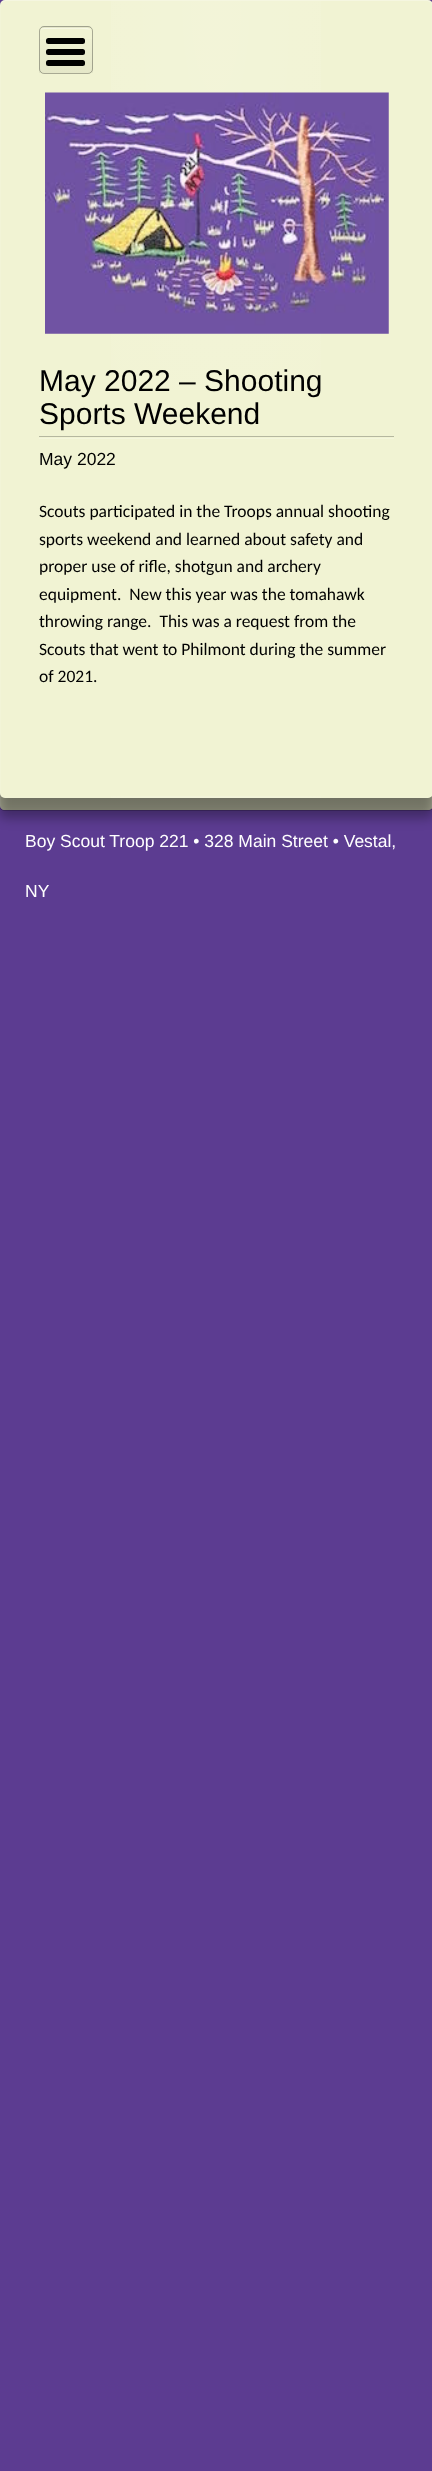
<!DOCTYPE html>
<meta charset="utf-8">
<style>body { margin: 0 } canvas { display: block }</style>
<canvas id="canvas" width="432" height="2471"></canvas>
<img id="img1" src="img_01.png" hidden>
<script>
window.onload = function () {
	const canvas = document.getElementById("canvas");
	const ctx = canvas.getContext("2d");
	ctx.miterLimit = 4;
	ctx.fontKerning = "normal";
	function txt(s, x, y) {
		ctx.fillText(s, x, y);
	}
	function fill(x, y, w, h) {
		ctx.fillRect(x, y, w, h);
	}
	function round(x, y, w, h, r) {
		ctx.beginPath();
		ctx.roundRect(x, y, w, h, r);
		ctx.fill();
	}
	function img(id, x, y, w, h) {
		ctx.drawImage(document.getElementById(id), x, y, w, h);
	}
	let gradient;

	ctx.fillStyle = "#5C3C91";
	fill(0, 0, 432, 2471);
	ctx.fillStyle = "#4A3074";
	ctx.beginPath();
	ctx.moveTo(0, 805);
	ctx.lineTo(0, 806);
	ctx.bezierCurveTo(0, 809, 2, 811, 5, 811);
	ctx.lineTo(428, 811);
	ctx.bezierCurveTo(431, 811, 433, 809, 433, 806);
	ctx.lineTo(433, 793);
	ctx.lineTo(432, 793);
	ctx.lineTo(432, 805);
	ctx.bezierCurveTo(432, 808, 430, 810, 428, 810);
	ctx.lineTo(5, 810);
	ctx.bezierCurveTo(2, 810, 0, 808, 0, 805);
	ctx.closePath();
	ctx.fill();
	ctx.fillStyle = "#F1F3D3";
	ctx.beginPath();
	ctx.moveTo(0, 791);
	ctx.lineTo(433, 791);
	ctx.lineTo(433, 805);
	ctx.bezierCurveTo(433, 808, 431, 810, 428, 810);
	ctx.lineTo(5, 810);
	ctx.bezierCurveTo(2, 810, 0, 808, 0, 805);
	ctx.closePath();
	ctx.fill();
	gradient = ctx.createLinearGradient(216, 791, 216, 810);
	gradient.addColorStop(0, "rgba(0, 0, 0, 0.2)");
	gradient.addColorStop(1, "rgba(0, 0, 0, 0.1)");
	ctx.fillStyle = gradient;
	ctx.beginPath();
	ctx.moveTo(0, 791);
	ctx.lineTo(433, 791);
	ctx.lineTo(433, 805);
	ctx.bezierCurveTo(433, 808, 431, 810, 428, 810);
	ctx.lineTo(5, 810);
	ctx.bezierCurveTo(2, 810, 0, 808, 0, 805);
	ctx.closePath();
	ctx.fill();
	ctx.fillStyle = "rgba(255, 255, 255, 0.1)";
	fill(431, 791, 1, 17);
	fill(0, 791, 1, 17);
	ctx.fillStyle = "rgba(0, 0, 0, 0.2)";
	ctx.beginPath();
	ctx.moveTo(0, 792);
	ctx.lineTo(0, 805);
	ctx.bezierCurveTo(0, 808, 2, 810, 5, 810);
	ctx.lineTo(428, 810);
	ctx.bezierCurveTo(431, 810, 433, 808, 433, 805);
	ctx.lineTo(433, 18);
	ctx.lineTo(432, 16);
	ctx.lineTo(432, 792);
	ctx.bezierCurveTo(432, 795, 430, 798, 428, 798);
	ctx.lineTo(5, 798);
	ctx.bezierCurveTo(2, 798, 0, 795, 0, 792);
	ctx.closePath();
	ctx.fill();
	ctx.fillStyle = "rgba(0, 0, 0, 0.3)";
	ctx.filter = "blur(6px)";
	ctx.beginPath();
	ctx.roundRect(-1, 18, 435, 800, 6);
	ctx.fill();
	ctx.filter = "none";
	ctx.fillStyle = "#F1F3D3";
	round(0, 0, 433, 798, 5);
	gradient = ctx.createRadialGradient(216, 0.32, 0, 216, 0.32, 304);
	gradient.addColorStop(0, "rgba(255, 255, 255, 0.12)");
	gradient.addColorStop(0.7, "rgba(255, 255, 255, 0)");
	ctx.fillStyle = gradient;
	ctx.beginPath();
	ctx.rect(111, 1, 210, 389);
	ctx.save();
	ctx.clip();
	ctx.scale(1, 1124 / 304);
	ctx.fillRect(0, 0, 432, 669);
	ctx.restore();
	gradient = ctx.createRadialGradient(216, 215.29, 0, 216, 215.29, 304);
	gradient.addColorStop(0, "rgba(255, 255, 255, 0.12)");
	gradient.addColorStop(0.7, "rgba(255, 255, 255, 0)");
	ctx.fillStyle = gradient;
	ctx.beginPath();
	ctx.rect(111, 796, 210, 2);
	ctx.save();
	ctx.clip();
	ctx.scale(1, 1124 / 304);
	ctx.fillRect(0, 0, 432, 669);
	ctx.restore();
	ctx.beginPath();
	ctx.moveTo(2, 2);
	ctx.lineTo(5, 0.5);
	ctx.lineTo(427.5, 0.5);
	ctx.lineTo(430.5, 2);
	ctx.strokeStyle = "rgba(255, 255, 255, 0.3)";
	ctx.lineWidth = 1.2;
	ctx.stroke();
	ctx.beginPath();
	ctx.moveTo(430.5, 2);
	ctx.bezierCurveTo(431.5, 2.5, 432, 4, 432, 5);
	ctx.lineTo(432, 792.5);
	ctx.bezierCurveTo(432, 793.5, 431.5, 795, 430.5, 795.5);
	ctx.bezierCurveTo(430, 796.5, 428.5, 797, 427.5, 797);
	ctx.lineTo(5, 797);
	ctx.bezierCurveTo(4, 797, 2.5, 796.5, 2, 795.5);
	ctx.bezierCurveTo(1, 795, 0.5, 793.5, 0.5, 792.5);
	ctx.lineTo(0.5, 5);
	ctx.bezierCurveTo(0.5, 4, 1, 2.5, 2, 2);
	ctx.strokeStyle = "rgba(255, 255, 255, 0.1)";
	ctx.stroke();
	ctx.save();
	ctx.beginPath();
	ctx.roundRect(39, 26, 54, 48, 5);
	ctx.clip();
	gradient = ctx.createLinearGradient(66, -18, 66, 28);
	gradient.addColorStop(0, "#F2F4D7");
	gradient.addColorStop(1, "#E5E7CA");
	ctx.fillStyle = gradient;
	fill(39, 26, 54, 2);
	ctx.restore();
	gradient = ctx.createLinearGradient(66, 27, 66, 73);
	gradient.addColorStop(0, "rgba(255, 255, 255, 0.05)");
	gradient.addColorStop(1, "rgba(0, 0, 0, 0.05)");
	ctx.fillStyle = gradient;
	fill(39, 39, 54, 34);
	ctx.fillStyle = "#F7F8E6";
	ctx.beginPath();
	ctx.moveTo(44, 29);
	ctx.bezierCurveTo(50, 29, 89, 28, 90, 30);
	ctx.bezierCurveTo(90, 29, 88, 28, 87, 28);
	ctx.lineTo(44, 28);
	ctx.bezierCurveTo(42, 28, 40, 30, 40, 32);
	ctx.bezierCurveTo(40, 30, 42, 29, 44, 29);
	ctx.closePath();
	ctx.fill();
	ctx.beginPath();
	ctx.roundRect(39.5, 26.5, 53, 47, 4.5);
	ctx.strokeStyle = "rgba(0, 0, 0, 0.3)";
	ctx.lineWidth = 1;
	ctx.stroke();
	ctx.fillStyle = "#000000";
	round(46, 38, 39, 6, 2.5);
	round(46, 49, 39, 6, 2.5);
	round(46, 60, 39, 6, 2.5);
	img("img1", 45, 92, 344, 242);
	ctx.fillStyle = "#B5B79F";
	fill(39, 436, 355, 1);
	ctx.fillStyle = "#F4F6DD";
	fill(39, 438, 355, 1);
	ctx.font = "30px Liberation Sans";
	ctx.fillStyle = "#000000";
	txt("May 2022 – Shooting", 39, 391);
	txt("Sports Weekend", 39, 424);
	ctx.font = "17.5px Liberation Sans";
	txt("May 2022", 39, 465);
	ctx.font = "17.5px Carlito";
	txt("Scouts participated in the Troops annual shooting", 39, 517);
	txt("sports weekend and learned about safety and", 39, 545);
	txt("proper use of rifle, shotgun and archery", 39, 572);
	txt("equipment.  New this year was the tomahawk", 39, 600);
	txt("throwing range.  This was a request from the", 39, 627);
	txt("Scouts that went to Philmont during the summer", 39, 655);
	txt("of 2021.", 39, 682);
	ctx.font = "17.5px Liberation Sans";
	ctx.fillStyle = "#FFFFFF";
	txt("Boy Scout Troop 221 • 328 Main Street • Vestal,", 25, 847);
	txt("NY", 25, 897);
};
</script>
